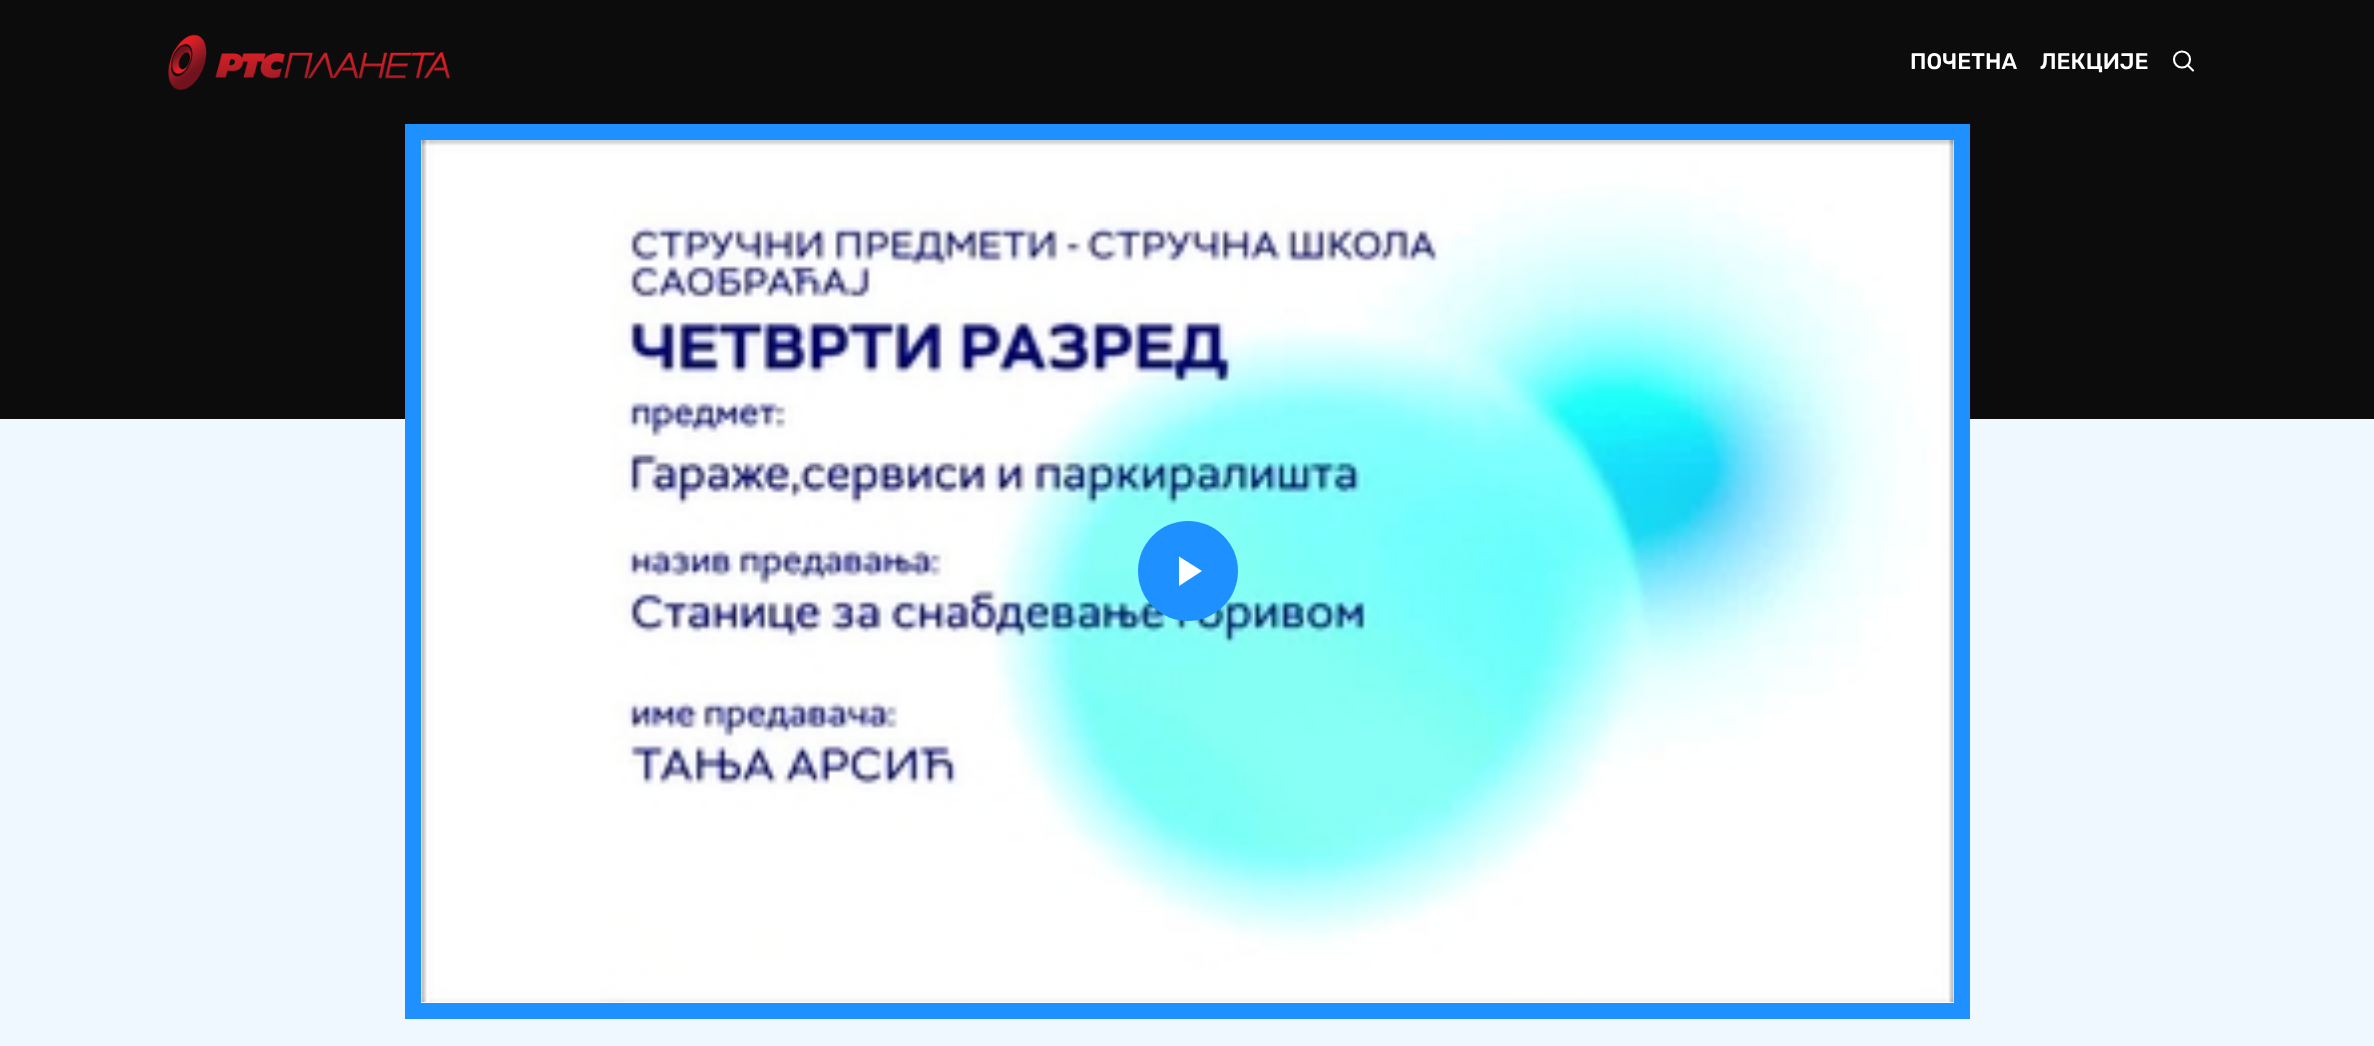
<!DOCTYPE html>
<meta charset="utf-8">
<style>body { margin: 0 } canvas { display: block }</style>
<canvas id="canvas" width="2374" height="1046"></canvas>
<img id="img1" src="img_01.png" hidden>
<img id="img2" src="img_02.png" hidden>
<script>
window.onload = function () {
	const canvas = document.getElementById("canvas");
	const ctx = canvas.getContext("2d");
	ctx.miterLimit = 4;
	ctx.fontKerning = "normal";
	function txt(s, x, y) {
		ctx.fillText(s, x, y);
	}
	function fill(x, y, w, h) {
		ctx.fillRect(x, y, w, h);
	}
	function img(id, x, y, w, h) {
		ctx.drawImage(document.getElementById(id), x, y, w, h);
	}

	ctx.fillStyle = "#F0F8FF";
	fill(0, 0, 2374, 1046);
	ctx.fillStyle = "#0C0C0C";
	fill(0, 0, 2374, 419);
	ctx.strokeStyle = "#1E90FF";
	ctx.lineWidth = 16;
	ctx.strokeRect(413, 132, 1549, 879);
	ctx.fillStyle = "#FFFFFF";
	fill(421, 140, 1533, 863);
	img("img1", 421, 140, 1533, 863);
	ctx.fillStyle = "#1E90FF";
	ctx.beginPath();
	ctx.arc(1188, 571, 50, 0, Math.PI * 2);
	ctx.fill();
	ctx.fillStyle = "#FFFFFF";
	ctx.beginPath();
	ctx.moveTo(1179, 556.5);
	ctx.lineTo(1179, 586);
	ctx.lineTo(1202, 571);
	ctx.closePath();
	ctx.fill();
	img("img2", 168, 34, 282, 56);
	ctx.beginPath();
	ctx.arc(2182, 59.5, 8, 0, Math.PI * 2);
	ctx.strokeStyle = "#FFFFFF";
	ctx.lineWidth = 2.1;
	ctx.stroke();
	ctx.beginPath();
	ctx.moveTo(2193, 70.5);
	ctx.lineTo(2187.5, 65);
	ctx.lineCap = "round";
	ctx.lineJoin = "round";
	ctx.stroke();
	ctx.font = "500 22.5px Rubik";
	txt("ПОЧЕТНА", 1910, 69);
	txt("ЛЕКЦИЈЕ", 2040, 69);
};
</script>
